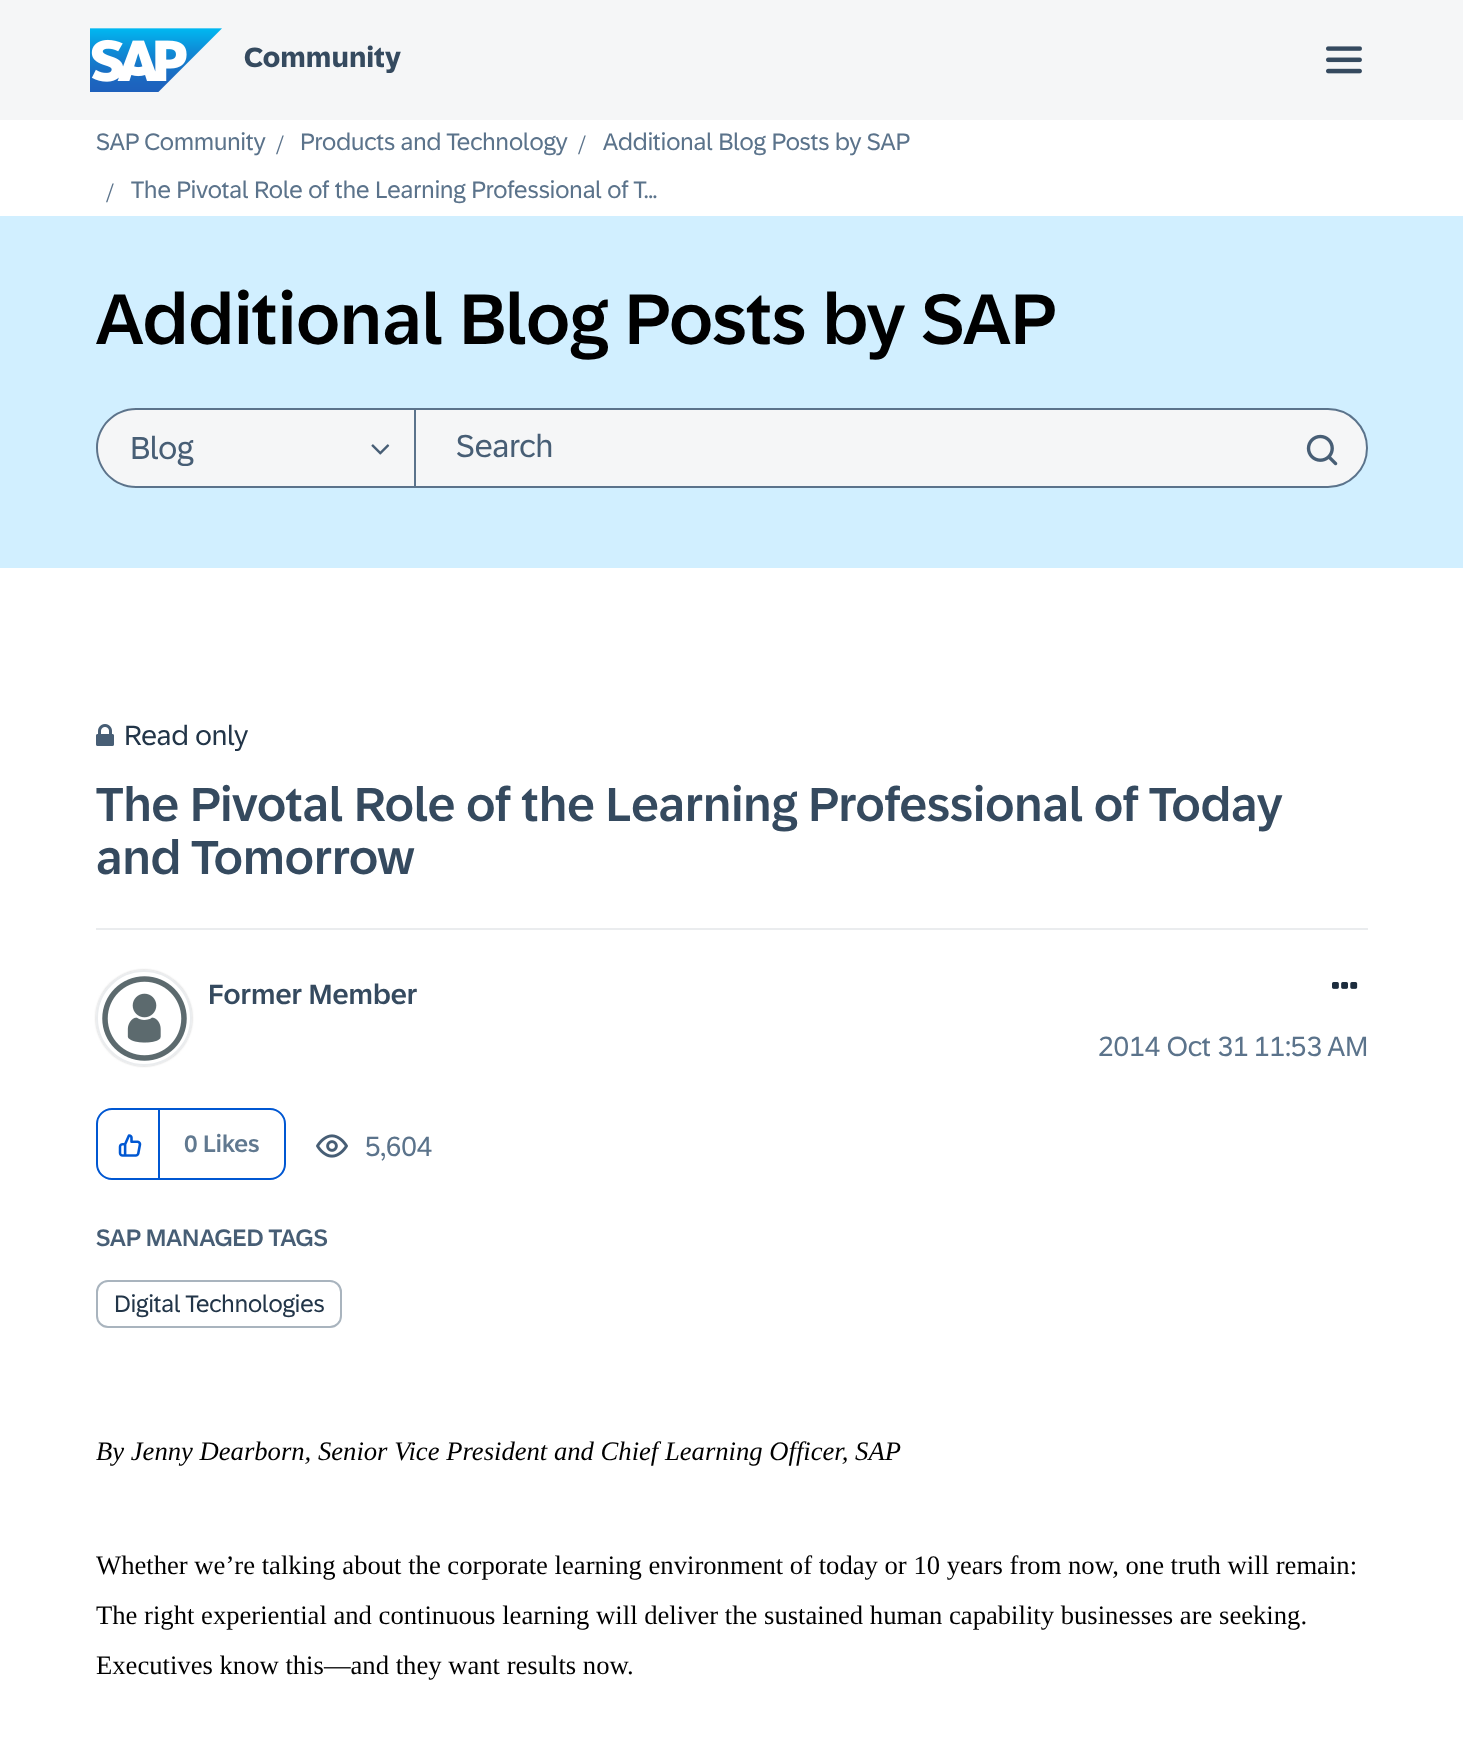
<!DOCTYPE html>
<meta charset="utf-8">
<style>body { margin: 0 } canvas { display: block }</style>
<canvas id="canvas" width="1463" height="1753"></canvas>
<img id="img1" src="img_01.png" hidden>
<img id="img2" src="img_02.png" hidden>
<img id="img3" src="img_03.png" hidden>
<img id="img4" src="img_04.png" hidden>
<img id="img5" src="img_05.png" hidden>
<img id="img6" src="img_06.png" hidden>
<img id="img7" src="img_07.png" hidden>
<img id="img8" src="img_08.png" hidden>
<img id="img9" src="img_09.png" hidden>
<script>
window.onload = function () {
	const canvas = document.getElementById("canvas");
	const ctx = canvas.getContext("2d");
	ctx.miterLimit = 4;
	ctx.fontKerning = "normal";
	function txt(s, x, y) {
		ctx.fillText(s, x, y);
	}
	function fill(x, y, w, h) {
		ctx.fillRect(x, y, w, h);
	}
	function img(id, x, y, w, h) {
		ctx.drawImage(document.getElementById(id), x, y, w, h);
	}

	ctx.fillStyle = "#FFFFFF";
	fill(0, 0, 1463, 1753);
	ctx.fillStyle = "#F5F6F7";
	fill(0, 0, 1463, 120);
	img("img1", 90, 28, 132, 64);
	img("img2", 1326, 46, 36, 28);
	ctx.fillStyle = "#D1EFFF";
	fill(0, 216, 1463, 352);
	ctx.fillStyle = "#F5F6F7";
	ctx.beginPath();
	ctx.roundRect(96, 408, 318, 80, [40, 0, 0, 40]);
	ctx.fill();
	ctx.fillStyle = "#5B738B";
	ctx.beginPath();
	ctx.moveTo(136, 408);
	ctx.lineTo(414, 408);
	ctx.lineTo(414, 488);
	ctx.lineTo(136, 488);
	ctx.bezierCurveTo(114, 488, 96, 470, 96, 448);
	ctx.bezierCurveTo(96, 426, 114, 408, 136, 408);
	ctx.closePath();
	ctx.moveTo(136, 410);
	ctx.lineTo(414, 410);
	ctx.lineTo(414, 486);
	ctx.lineTo(136, 486);
	ctx.bezierCurveTo(115, 486, 98, 469, 98, 448);
	ctx.bezierCurveTo(98, 427, 115, 410, 136, 410);
	ctx.closePath();
	ctx.fill("evenodd");
	img("img3", 371, 444, 19, 11);
	ctx.fillStyle = "#F5F6F7";
	ctx.beginPath();
	ctx.roundRect(415, 409, 952, 78, [0, 39, 39, 0]);
	ctx.fill();
	ctx.strokeStyle = "#5B738B";
	ctx.lineWidth = 2;
	ctx.stroke();
	img("img4", 1306, 434, 32, 32);
	ctx.fillStyle = "#EAECEE";
	fill(96, 928, 1272, 2);
	img("img5", 96, 724, 18, 22);
	ctx.save();
	ctx.beginPath();
	ctx.moveTo(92, 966);
	ctx.lineTo(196, 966);
	ctx.lineTo(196, 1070);
	ctx.lineTo(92, 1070);
	ctx.closePath();
	ctx.moveTo(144, 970);
	ctx.bezierCurveTo(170.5, 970, 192, 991.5, 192, 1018);
	ctx.bezierCurveTo(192, 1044.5, 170.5, 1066, 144, 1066);
	ctx.bezierCurveTo(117.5, 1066, 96, 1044.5, 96, 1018);
	ctx.bezierCurveTo(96, 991.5, 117.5, 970, 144, 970);
	ctx.closePath();
	ctx.clip("evenodd");
	ctx.fillStyle = "#C4C4C4";
	ctx.filter = "blur(1px)";
	ctx.beginPath();
	ctx.roundRect(96, 970, 96, 96, 48);
	ctx.fill();
	ctx.filter = "none";
	ctx.restore();
	ctx.beginPath();
	ctx.arc(144, 1018, 47, 0, Math.PI * 2);
	ctx.strokeStyle = "#EAECEE";
	ctx.stroke();
	img("img6", 102, 976, 85, 85);
	img("img7", 1332, 982, 26, 7);
	ctx.beginPath();
	ctx.roundRect(97, 1109, 188, 70, 15);
	ctx.strokeStyle = "#0057D2";
	ctx.stroke();
	ctx.fillStyle = "#0057D2";
	fill(158, 1110, 2, 70);
	img("img8", 118, 1134, 24, 23);
	img("img9", 316, 1134, 32, 24);
	ctx.beginPath();
	ctx.roundRect(97, 1281, 244, 46, 11);
	ctx.strokeStyle = "#A9B4BE";
	ctx.stroke();
	ctx.font = "bold 28px '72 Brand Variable'";
	ctx.fillStyle = "#354A5F";
	txt("Community", 244, 67);
	ctx.font = "24px '72 Brand Variable'";
	ctx.fillStyle = "#5B738B";
	txt("SAP Community", 96, 150);
	ctx.font = "28px Liberation Serif";
	txt("/", 276, 154);
	ctx.font = "24px '72 Brand Variable'";
	txt("Products and Technology", 300, 150);
	ctx.font = "28px Liberation Serif";
	txt("/", 578, 154);
	ctx.font = "24px '72 Brand Variable'";
	txt("Additional Blog Posts by SAP", 603, 150);
	ctx.font = "28px Liberation Serif";
	txt("/", 106, 202);
	ctx.font = "24px '72 Brand Variable'";
	txt("The Pivotal Role of the Learning Professional of T...", 131, 198);
	ctx.font = "500 72px '72 Brand Variable'";
	ctx.fillStyle = "#000000";
	txt("Additional Blog Posts by SAP", 96, 344);
	ctx.font = "32px '72 Brand Variable'";
	ctx.fillStyle = "#475E75";
	txt("Blog", 130, 459);
	txt("Search", 456, 457);
	ctx.font = "28px '72 Brand Variable'";
	ctx.fillStyle = "#223548";
	txt("Read only", 124, 745);
	ctx.font = "500 48px '72 Brand Variable'";
	ctx.fillStyle = "#354A5F";
	txt("The Pivotal Role of the Learning Professional of Today", 96, 821);
	txt("and Tomorrow", 96, 874);
	ctx.font = "500 28px '72 Brand Variable'";
	txt("Former Member", 208, 1004);
	ctx.font = "28px '72 Brand Variable'";
	ctx.fillStyle = "#5B738B";
	txt("2014 Oct 31", 1098, 1056);
	txt("11:53 AM", 1254, 1056);
	ctx.font = "500 24px '72 Brand Variable'";
	ctx.fillStyle = "#617990";
	txt("0 Likes", 184, 1152);
	ctx.font = "28px '72 Brand Variable'";
	ctx.fillStyle = "#5B738B";
	txt("5,604", 365, 1156);
	ctx.font = "500 24px '72 Brand Variable'";
	ctx.fillStyle = "#475E75";
	txt("SAP MANAGED TAGS", 96, 1246);
	ctx.font = "24px '72 Brand Variable'";
	ctx.fillStyle = "#223548";
	txt("Digital Technologies", 114, 1312);
	ctx.font = "italic 26.65px Liberation Serif";
	ctx.fillStyle = "#000000";
	txt("By Jenny Dearborn, Senior Vice President and Chief Learning Officer, SAP", 96, 1460);
	ctx.font = "26.65px Liberation Serif";
	txt("Whether we’re talking about the corporate learning environment of today or 10 years from now, one truth will remain:", 96, 1574);
	txt("The right experiential and continuous learning will deliver the sustained human capability businesses are seeking.", 96, 1624);
	txt("Executives know this—and they want results now.", 96, 1674);
};
</script>
